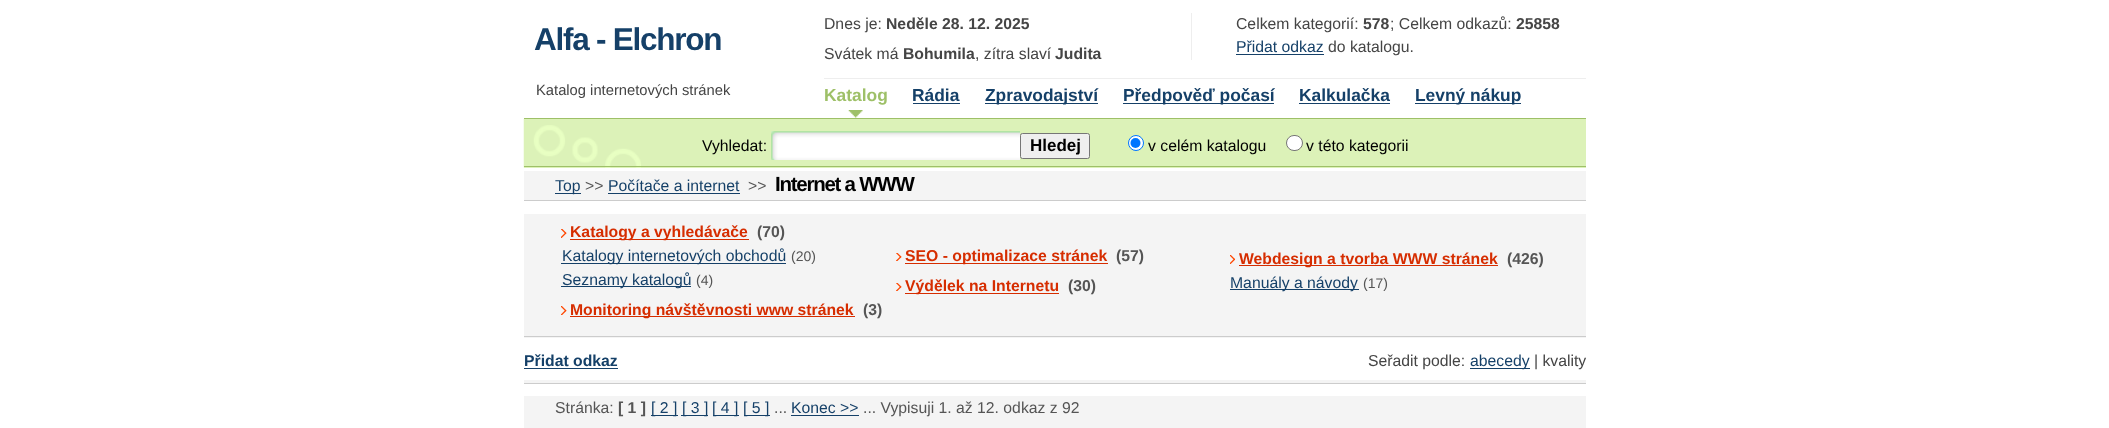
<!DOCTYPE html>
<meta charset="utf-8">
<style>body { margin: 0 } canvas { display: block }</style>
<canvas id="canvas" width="2109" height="428"></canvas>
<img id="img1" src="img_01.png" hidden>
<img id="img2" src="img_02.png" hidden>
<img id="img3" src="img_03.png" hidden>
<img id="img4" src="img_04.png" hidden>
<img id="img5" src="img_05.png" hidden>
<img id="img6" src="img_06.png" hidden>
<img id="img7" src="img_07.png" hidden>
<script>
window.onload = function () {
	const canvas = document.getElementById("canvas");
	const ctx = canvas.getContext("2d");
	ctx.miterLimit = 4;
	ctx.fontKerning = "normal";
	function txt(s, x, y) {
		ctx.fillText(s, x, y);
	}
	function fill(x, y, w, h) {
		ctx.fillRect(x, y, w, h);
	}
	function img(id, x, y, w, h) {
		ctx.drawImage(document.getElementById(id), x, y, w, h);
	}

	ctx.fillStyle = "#FFFFFF";
	fill(0, 0, 2109, 428);
	ctx.fillStyle = "#EEEEEE";
	fill(824, 78, 762, 1);
	fill(1191, 13, 1, 47);
	ctx.fillStyle = "#154068";
	fill(1236, 54, 88, 1);
	img("img1", 848, 110, 15, 8);
	fill(913, 103, 47, 1);
	fill(985, 103, 113, 1);
	fill(1123, 103, 151, 1);
	fill(1299, 103, 91, 1);
	fill(1415, 103, 106, 1);
	ctx.fillStyle = "#DCF2B8";
	fill(524, 119, 1062, 49);
	img("img2", 523, 118, 118, 50);
	ctx.fillStyle = "#9EC068";
	fill(524, 118, 1062, 1);
	fill(524, 166, 1062, 1);
	img("img3", 771, 131, 249, 29);
	ctx.fillStyle = "#EFEFEF";
	ctx.beginPath();
	ctx.roundRect(1020.5, 133.5, 69, 25, 2);
	ctx.fill();
	ctx.strokeStyle = "#767676";
	ctx.stroke();
	ctx.fillStyle = "#FFFFFF";
	ctx.beginPath();
	ctx.arc(1136, 143, 7.5, 0, Math.PI * 2);
	ctx.fill();
	ctx.strokeStyle = "#0075FF";
	ctx.stroke();
	ctx.fillStyle = "#0075FF";
	ctx.beginPath();
	ctx.arc(1135.5, 143, 5, 0, Math.PI * 2);
	ctx.fill();
	ctx.fillStyle = "#FFFFFF";
	ctx.beginPath();
	ctx.roundRect(1286.5, 135.5, 16, 15, 7.5);
	ctx.fill();
	ctx.strokeStyle = "#767676";
	ctx.stroke();
	ctx.fillStyle = "#F4F4F4";
	fill(524, 171, 1062, 29);
	ctx.fillStyle = "#CCCCCC";
	fill(524, 200, 1062, 1);
	ctx.fillStyle = "#154068";
	fill(555, 193, 26, 1);
	fill(608, 193, 132, 1);
	ctx.fillStyle = "#F4F4F4";
	fill(524, 214, 1062, 124);
	ctx.fillStyle = "#CCCCCC";
	fill(524, 336, 1062, 1);
	img("img4", 561, 229, 6, 9);
	ctx.fillStyle = "#D62D00";
	fill(570, 239, 179, 1);
	ctx.fillStyle = "#154068";
	fill(561, 263, 225, 1);
	fill(561, 286, 130, 1);
	img("img5", 561, 306, 6, 9);
	ctx.fillStyle = "#D62D00";
	fill(570, 316, 285, 1);
	img("img6", 896, 253, 6, 8);
	fill(905, 263, 203, 1);
	img("img6", 896, 283, 6, 8);
	fill(905, 293, 154, 1);
	img("img7", 1230, 255, 6, 9);
	fill(1239, 265, 259, 1);
	ctx.fillStyle = "#154068";
	fill(1230, 289, 129, 1);
	fill(524, 368, 94, 1);
	fill(1470, 368, 60, 1);
	ctx.fillStyle = "#F4F4F4";
	fill(524, 380, 1062, 3);
	ctx.fillStyle = "#CCCCCC";
	fill(524, 383, 1062, 1);
	ctx.fillStyle = "#F4F4F4";
	fill(524, 396, 1062, 32);
	ctx.fillStyle = "#154068";
	fill(651, 415, 27, 1);
	fill(681, 415, 27, 1);
	fill(713, 415, 26, 1);
	fill(744, 415, 26, 1);
	fill(791, 415, 68, 1);
	ctx.letterSpacing = "-1.25px";
	ctx.font = "bold 31.5px Liberation Sans";
	txt("Alfa - Elchron", 534, 50);
	ctx.letterSpacing = "0px";
	ctx.font = "15.75px Liberation Sans";
	ctx.fillStyle = "#454545";
	txt("Dnes je:", 824, 29);
	ctx.font = "bold 15.75px Liberation Sans";
	txt("Neděle 28. 12. 2025", 886, 29);
	ctx.font = "15.75px Liberation Sans";
	txt("Svátek má", 824, 59);
	ctx.font = "bold 15.75px Liberation Sans";
	txt("Bohumila", 903, 59);
	ctx.font = "15.75px Liberation Sans";
	txt(", zítra slaví", 975, 59);
	ctx.font = "bold 15.75px Liberation Sans";
	txt("Judita", 1055, 59);
	ctx.font = "15.75px Liberation Sans";
	txt("Celkem kategorií:", 1236, 29);
	ctx.font = "bold 15.75px Liberation Sans";
	txt("578", 1363, 29);
	ctx.font = "15.75px Liberation Sans";
	txt("; Celkem odkazů:", 1390, 29);
	ctx.font = "bold 15.75px Liberation Sans";
	txt("25858", 1516, 29);
	ctx.font = "15.75px Liberation Sans";
	ctx.fillStyle = "#154068";
	txt("Přidat odkaz", 1236, 52);
	ctx.fillStyle = "#454545";
	txt("do katalogu.", 1328, 52);
	ctx.font = "14.75px Liberation Sans";
	txt("Katalog internetových stránek", 536, 95);
	ctx.font = "bold 17.4px Liberation Sans";
	ctx.fillStyle = "#9EC068";
	txt("Katalog", 824, 101);
	ctx.fillStyle = "#154068";
	txt("Rádia", 912, 101);
	txt("Zpravodajství", 985, 101);
	txt("Předpověď počasí", 1123, 101);
	txt("Kalkulačka", 1299, 101);
	txt("Levný nákup", 1415, 101);
	ctx.font = "15.75px Liberation Sans";
	ctx.fillStyle = "#000000";
	txt("Vyhledat:", 702, 151);
	ctx.font = "bold 17px Liberation Sans";
	txt("Hledej", 1030, 151);
	ctx.font = "15.75px Liberation Sans";
	txt("v celém katalogu", 1148, 151);
	txt("v této kategorii", 1306, 151);
	ctx.fillStyle = "#154068";
	txt("Top", 555, 191);
	ctx.fillStyle = "#555555";
	txt(">>", 585, 191);
	ctx.fillStyle = "#154068";
	txt("Počítače a internet", 608, 191);
	ctx.fillStyle = "#555555";
	txt(">>", 748, 191);
	ctx.letterSpacing = "-1.25px";
	ctx.font = "bold 20.5px Liberation Sans";
	ctx.fillStyle = "#000000";
	txt("Internet a WWW", 775, 191);
	ctx.letterSpacing = "0px";
	ctx.font = "bold 15.75px Liberation Sans";
	ctx.fillStyle = "#D62D00";
	txt("Katalogy a vyhledávače", 570, 237);
	ctx.fillStyle = "#555555";
	txt("(70)", 757, 237);
	ctx.font = "15.75px Liberation Sans";
	ctx.fillStyle = "#154068";
	txt("Katalogy internetových obchodů", 562, 261);
	ctx.font = "14px Liberation Sans";
	ctx.fillStyle = "#555555";
	txt("(20)", 791, 261);
	ctx.font = "15.75px Liberation Sans";
	ctx.fillStyle = "#154068";
	txt("Seznamy katalogů", 562, 285);
	ctx.font = "14px Liberation Sans";
	ctx.fillStyle = "#555555";
	txt("(4)", 696, 285);
	ctx.font = "bold 15.75px Liberation Sans";
	ctx.fillStyle = "#D62D00";
	txt("Monitoring návštěvnosti www stránek", 570, 315);
	ctx.fillStyle = "#555555";
	txt("(3)", 863, 315);
	ctx.fillStyle = "#D62D00";
	txt("SEO - optimalizace stránek", 905, 261);
	ctx.fillStyle = "#555555";
	txt("(57)", 1116, 261);
	ctx.fillStyle = "#D62D00";
	txt("Výdělek na Internetu", 905, 291);
	ctx.fillStyle = "#555555";
	txt("(30)", 1068, 291);
	ctx.fillStyle = "#D62D00";
	txt("Webdesign a tvorba WWW stránek", 1239, 264);
	ctx.fillStyle = "#555555";
	txt("(426)", 1507, 264);
	ctx.font = "15.75px Liberation Sans";
	ctx.fillStyle = "#154068";
	txt("Manuály a návody", 1230, 288);
	ctx.font = "14px Liberation Sans";
	ctx.fillStyle = "#555555";
	txt("(17)", 1363, 288);
	ctx.font = "bold 15.75px Liberation Sans";
	ctx.fillStyle = "#154068";
	txt("Přidat odkaz", 524, 366);
	ctx.font = "15.75px Liberation Sans";
	ctx.fillStyle = "#454545";
	txt("Seřadit podle:", 1368, 366);
	ctx.fillStyle = "#154068";
	txt("abecedy", 1470, 366);
	ctx.fillStyle = "#454545";
	txt("| kvality", 1534, 366);
	ctx.fillStyle = "#555555";
	txt("Stránka:", 555, 413);
	ctx.font = "bold 15.75px Liberation Sans";
	txt("[ 1 ]", 618, 413);
	ctx.font = "15.75px Liberation Sans";
	ctx.fillStyle = "#154068";
	txt("[ 2 ]", 651, 413);
	txt("[ 3 ]", 682, 413);
	txt("[ 4 ]", 712, 413);
	txt("[ 5 ]", 743, 413);
	ctx.fillStyle = "#555555";
	txt("...", 774, 413);
	ctx.fillStyle = "#154068";
	txt("Konec >>", 791, 413);
	ctx.fillStyle = "#555555";
	txt("... Vypisuji 1. až 12. odkaz z 92", 863, 413);
};
</script>
